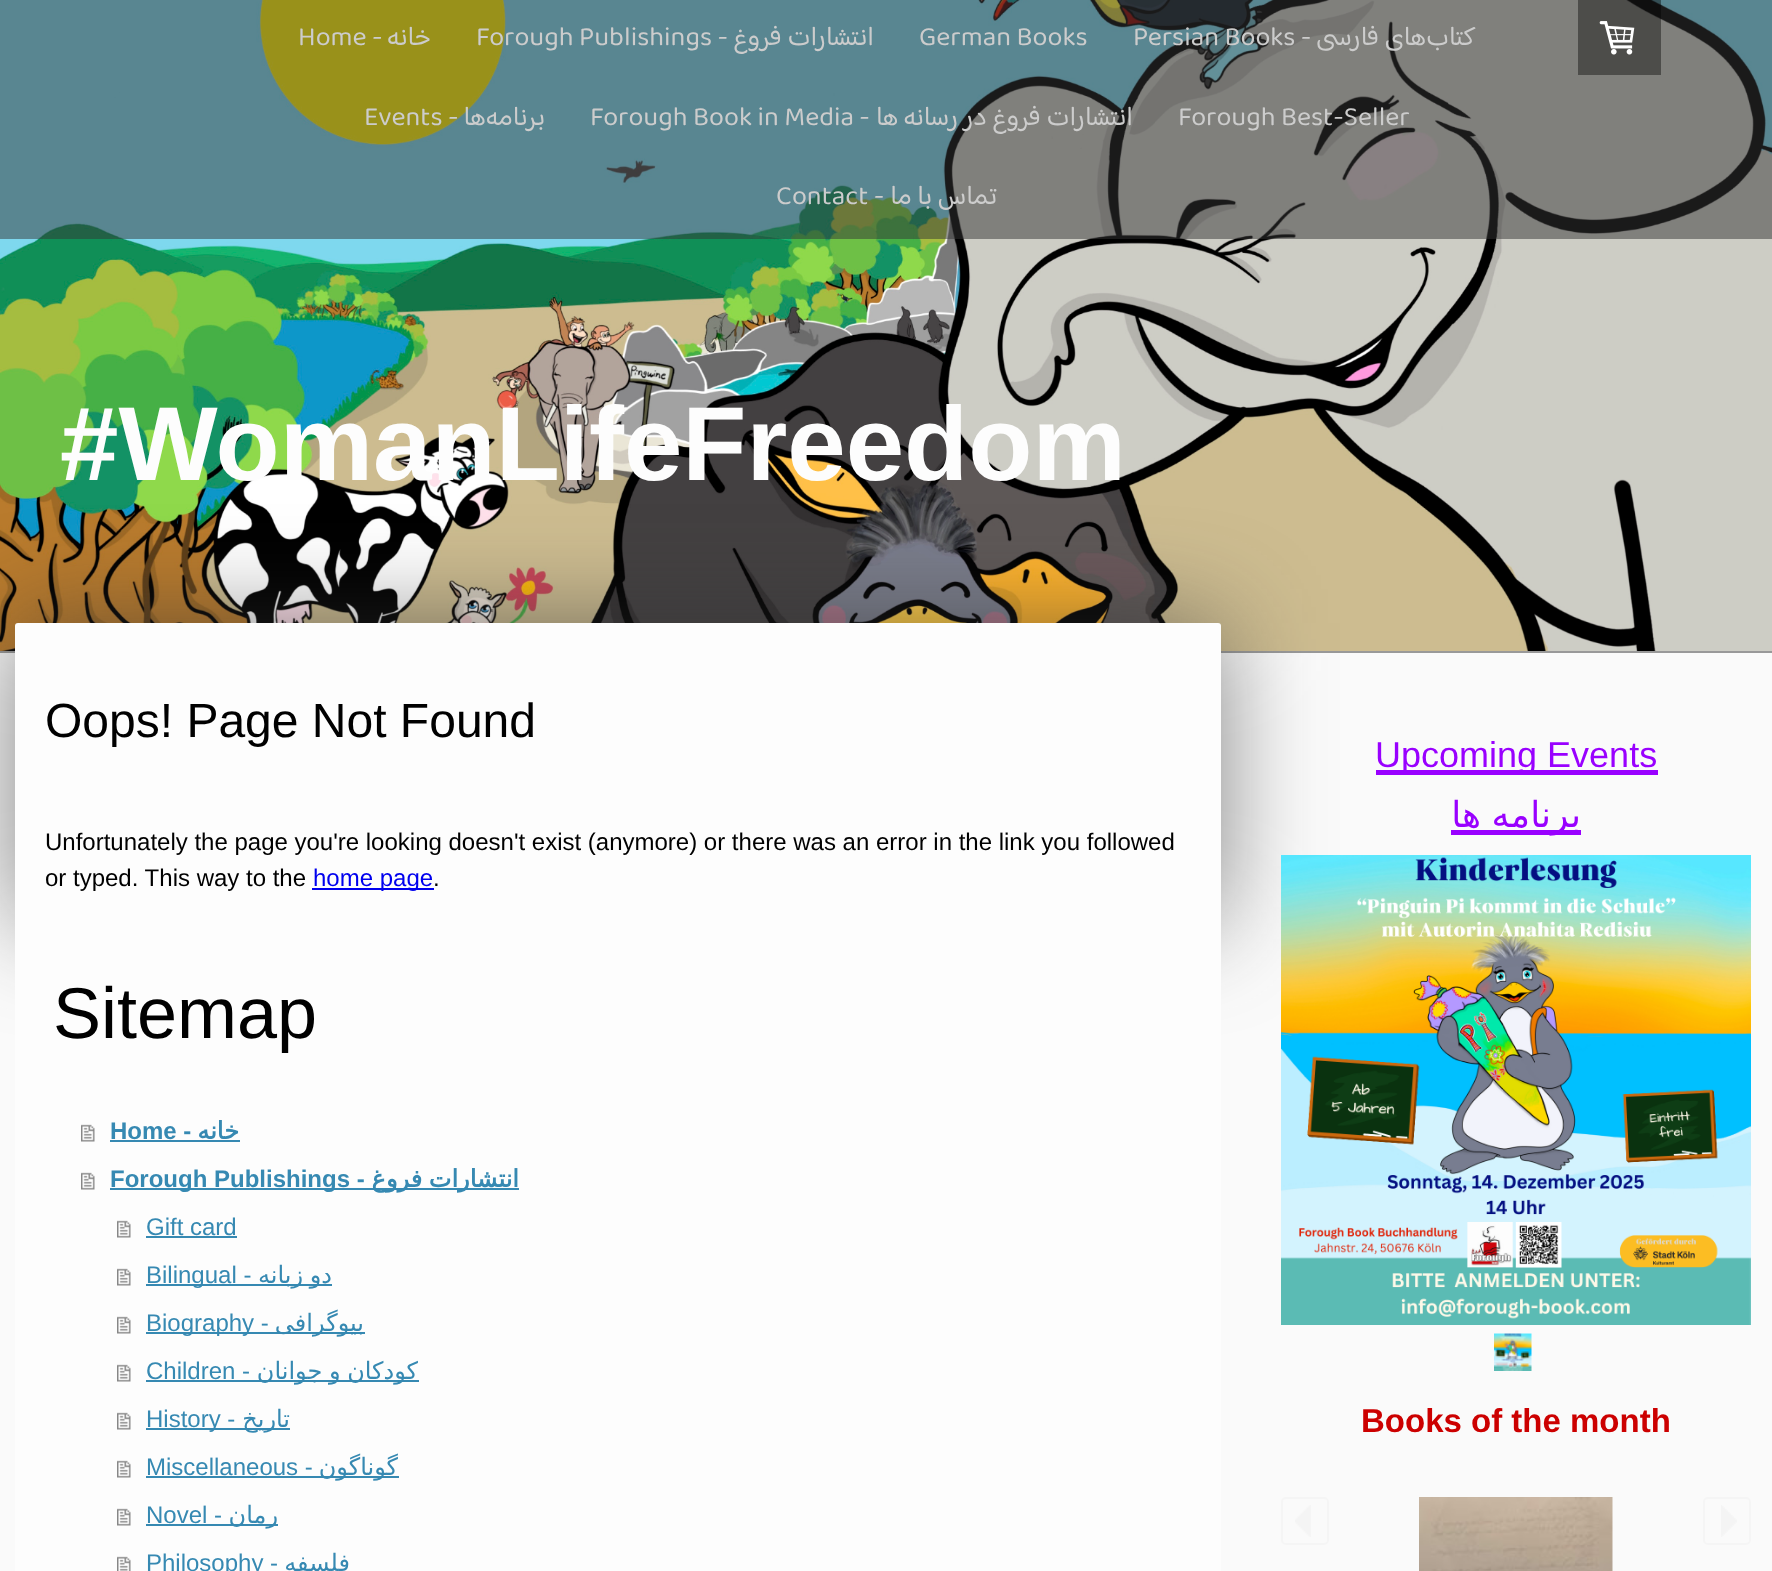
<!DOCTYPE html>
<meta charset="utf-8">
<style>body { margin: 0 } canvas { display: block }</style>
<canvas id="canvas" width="1772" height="1571"></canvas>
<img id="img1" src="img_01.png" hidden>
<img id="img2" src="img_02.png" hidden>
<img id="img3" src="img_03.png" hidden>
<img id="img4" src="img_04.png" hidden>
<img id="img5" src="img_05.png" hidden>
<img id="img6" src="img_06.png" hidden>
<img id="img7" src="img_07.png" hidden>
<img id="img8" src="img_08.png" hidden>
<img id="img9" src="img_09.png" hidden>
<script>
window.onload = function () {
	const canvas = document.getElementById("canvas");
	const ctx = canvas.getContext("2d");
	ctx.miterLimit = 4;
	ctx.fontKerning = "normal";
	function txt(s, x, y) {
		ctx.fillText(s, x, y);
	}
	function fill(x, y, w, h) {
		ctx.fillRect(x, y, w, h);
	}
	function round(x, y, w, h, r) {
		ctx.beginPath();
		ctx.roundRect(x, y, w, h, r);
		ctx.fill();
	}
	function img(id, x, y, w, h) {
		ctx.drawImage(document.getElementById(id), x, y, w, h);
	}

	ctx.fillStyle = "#FAFAFA";
	fill(0, 0, 1772, 1571);
	img("img1", 0, 0, 1772, 651);
	ctx.fillStyle = "rgba(51, 51, 51, 0.5)";
	fill(0, 0, 1772, 239);
	ctx.fillStyle = "rgba(0, 0, 0, 0.4)";
	fill(1578, 0, 83, 75);
	img("img2", 1599, 21, 36, 34);
	ctx.fillStyle = "#999999";
	fill(0, 651, 1772, 2);
	ctx.fillStyle = "rgba(51, 51, 51, 0.6)";
	ctx.filter = "blur(51px)";
	ctx.beginPath();
	ctx.rect(15, 623, 1206, 300);
	ctx.fill();
	ctx.filter = "none";
	ctx.fillStyle = "#FDFDFD";
	round(15, 623, 1206, 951, 3);
	ctx.fillStyle = "#0000EE";
	fill(312, 888, 122, 2);
	img("img3", 81, 1124, 14, 18);
	ctx.fillStyle = "#3689B2";
	fill(110, 1140, 130, 2);
	img("img3", 81, 1172, 14, 18);
	fill(110, 1188, 409, 2);
	img("img3", 117, 1220, 14, 18);
	fill(146, 1236, 91, 2);
	img("img3", 117, 1268, 14, 18);
	fill(146, 1284, 186, 2);
	img("img3", 117, 1316, 14, 18);
	fill(146, 1332, 219, 2);
	img("img3", 117, 1364, 14, 18);
	fill(146, 1380, 273, 2);
	img("img3", 117, 1412, 14, 18);
	fill(146, 1428, 144, 2);
	img("img3", 117, 1460, 14, 18);
	fill(146, 1476, 253, 2);
	img("img3", 117, 1508, 14, 18);
	fill(146, 1524, 132, 2);
	img("img4", 117, 1556, 14, 15);
	ctx.fillStyle = "#9900FF";
	fill(1376, 770, 282, 5);
	fill(1451, 830, 130, 5);
	img("img5", 1281, 855, 470, 470);
	img("img6", 1494, 1333, 38, 38);
	ctx.beginPath();
	ctx.roundRect(1282, 1498, 46, 46, 4);
	ctx.strokeStyle = "#F5F5F5";
	ctx.lineWidth = 2;
	ctx.stroke();
	img("img7", 1295, 1505, 16, 32);
	img("img8", 1419, 1497, 194, 74);
	ctx.beginPath();
	ctx.roundRect(1704, 1498, 46, 46, 4);
	ctx.stroke();
	img("img9", 1721, 1505, 16, 32);
	ctx.font = "27px 'Baloo Bhaijaan 2'";
	ctx.fillStyle = "#CCCCCC";
	txt("Home -", 298, 45);
	ctx.direction = "rtl";
	txt("خانه", 431, 45);
	ctx.direction = "ltr";
	txt("Forough Publishings -", 476, 45);
	ctx.direction = "rtl";
	txt("انتشارات فروغ", 874, 45);
	ctx.direction = "ltr";
	txt("German Books", 919, 45);
	txt("Persian Books -", 1133, 45);
	ctx.direction = "rtl";
	txt("کتاب‌های فارسی", 1475, 45);
	ctx.direction = "ltr";
	txt("Events -", 364, 125);
	ctx.direction = "rtl";
	txt("برنامه‌ها", 545, 125);
	ctx.direction = "ltr";
	txt("Forough Book in Media -", 590, 125);
	ctx.direction = "rtl";
	txt("انتشارات فروغ در رسانه ها", 1133, 125);
	ctx.direction = "ltr";
	txt("Forough Best-Seller", 1178, 125);
	txt("Contact -", 776, 204);
	ctx.direction = "rtl";
	txt("تماس با ما", 997, 204);
	ctx.direction = "ltr";
	ctx.font = "bold 105px Liberation Sans";
	ctx.fillStyle = "#FDFDFD";
	txt("#WomanLifeFreedom", 60, 480);
	ctx.font = "48px Liberation Sans";
	ctx.fillStyle = "#000000";
	txt("Oops! Page Not Found", 45, 737);
	ctx.font = "24px Liberation Sans";
	txt("Unfortunately the page you're looking doesn't exist (anymore) or there was an error in the link you followed", 45, 850);
	txt("or typed. This way to the", 45, 886);
	ctx.fillStyle = "#0000EE";
	txt("home page", 313, 886);
	ctx.fillStyle = "#000000";
	txt(".", 433, 886);
	ctx.font = "72px Liberation Sans";
	txt("Sitemap", 53, 1038);
	ctx.font = "bold 24px Liberation Sans";
	ctx.fillStyle = "#3689B2";
	txt("Home -", 110, 1139);
	ctx.direction = "rtl";
	ctx.font = "bold 24px DejaVu Sans";
	txt("خانه", 239, 1139);
	ctx.direction = "ltr";
	ctx.font = "bold 24px Liberation Sans";
	txt("Forough Publishings -", 110, 1187);
	ctx.wordSpacing = "-1px";
	ctx.direction = "rtl";
	ctx.font = "bold 24px DejaVu Sans";
	txt("انتشارات فروغ", 519, 1187);
	ctx.wordSpacing = "0px";
	ctx.direction = "ltr";
	ctx.font = "24px Liberation Sans";
	txt("Gift card", 146, 1235);
	txt("Bilingual -", 146, 1283);
	ctx.wordSpacing = "-1px";
	ctx.direction = "rtl";
	ctx.font = "24px DejaVu Sans";
	txt("دو زبانه", 332, 1283);
	ctx.wordSpacing = "0px";
	ctx.direction = "ltr";
	ctx.font = "24px Liberation Sans";
	txt("Biography -", 146, 1331);
	ctx.direction = "rtl";
	ctx.font = "24px DejaVu Sans";
	txt("بیوگرافی", 364, 1331);
	ctx.direction = "ltr";
	ctx.font = "24px Liberation Sans";
	txt("Children -", 146, 1379);
	ctx.wordSpacing = "-1px";
	ctx.direction = "rtl";
	ctx.font = "24px DejaVu Sans";
	txt("كودكان و جوانان", 418, 1379);
	ctx.wordSpacing = "0px";
	ctx.direction = "ltr";
	ctx.font = "24px Liberation Sans";
	txt("History -", 146, 1427);
	ctx.direction = "rtl";
	ctx.font = "24px DejaVu Sans";
	txt("تاریخ", 290, 1427);
	ctx.direction = "ltr";
	ctx.font = "24px Liberation Sans";
	txt("Miscellaneous -", 146, 1475);
	ctx.direction = "rtl";
	ctx.font = "24px DejaVu Sans";
	txt("گوناگون", 398, 1475);
	ctx.direction = "ltr";
	ctx.font = "24px Liberation Sans";
	txt("Novel -", 146, 1523);
	ctx.direction = "rtl";
	ctx.font = "24px DejaVu Sans";
	txt("رمان", 278, 1523);
	ctx.direction = "ltr";
	ctx.font = "24px Liberation Sans";
	txt("Philosophy -", 146, 1571);
	ctx.direction = "rtl";
	ctx.font = "24px DejaVu Sans";
	txt("فلسفه", 350, 1571);
	ctx.direction = "ltr";
	ctx.font = "36px Liberation Sans";
	ctx.fillStyle = "#9900FF";
	txt("Upcoming Events", 1375, 767);
	ctx.wordSpacing = "-1px";
	ctx.direction = "rtl";
	ctx.font = "36px DejaVu Sans";
	txt("برنامه ها", 1581, 827);
	ctx.wordSpacing = "0px";
	ctx.direction = "ltr";
	ctx.font = "bold 33px Liberation Sans";
	ctx.fillStyle = "#CC0000";
	txt("Books of the month", 1361, 1432);
};
</script>
